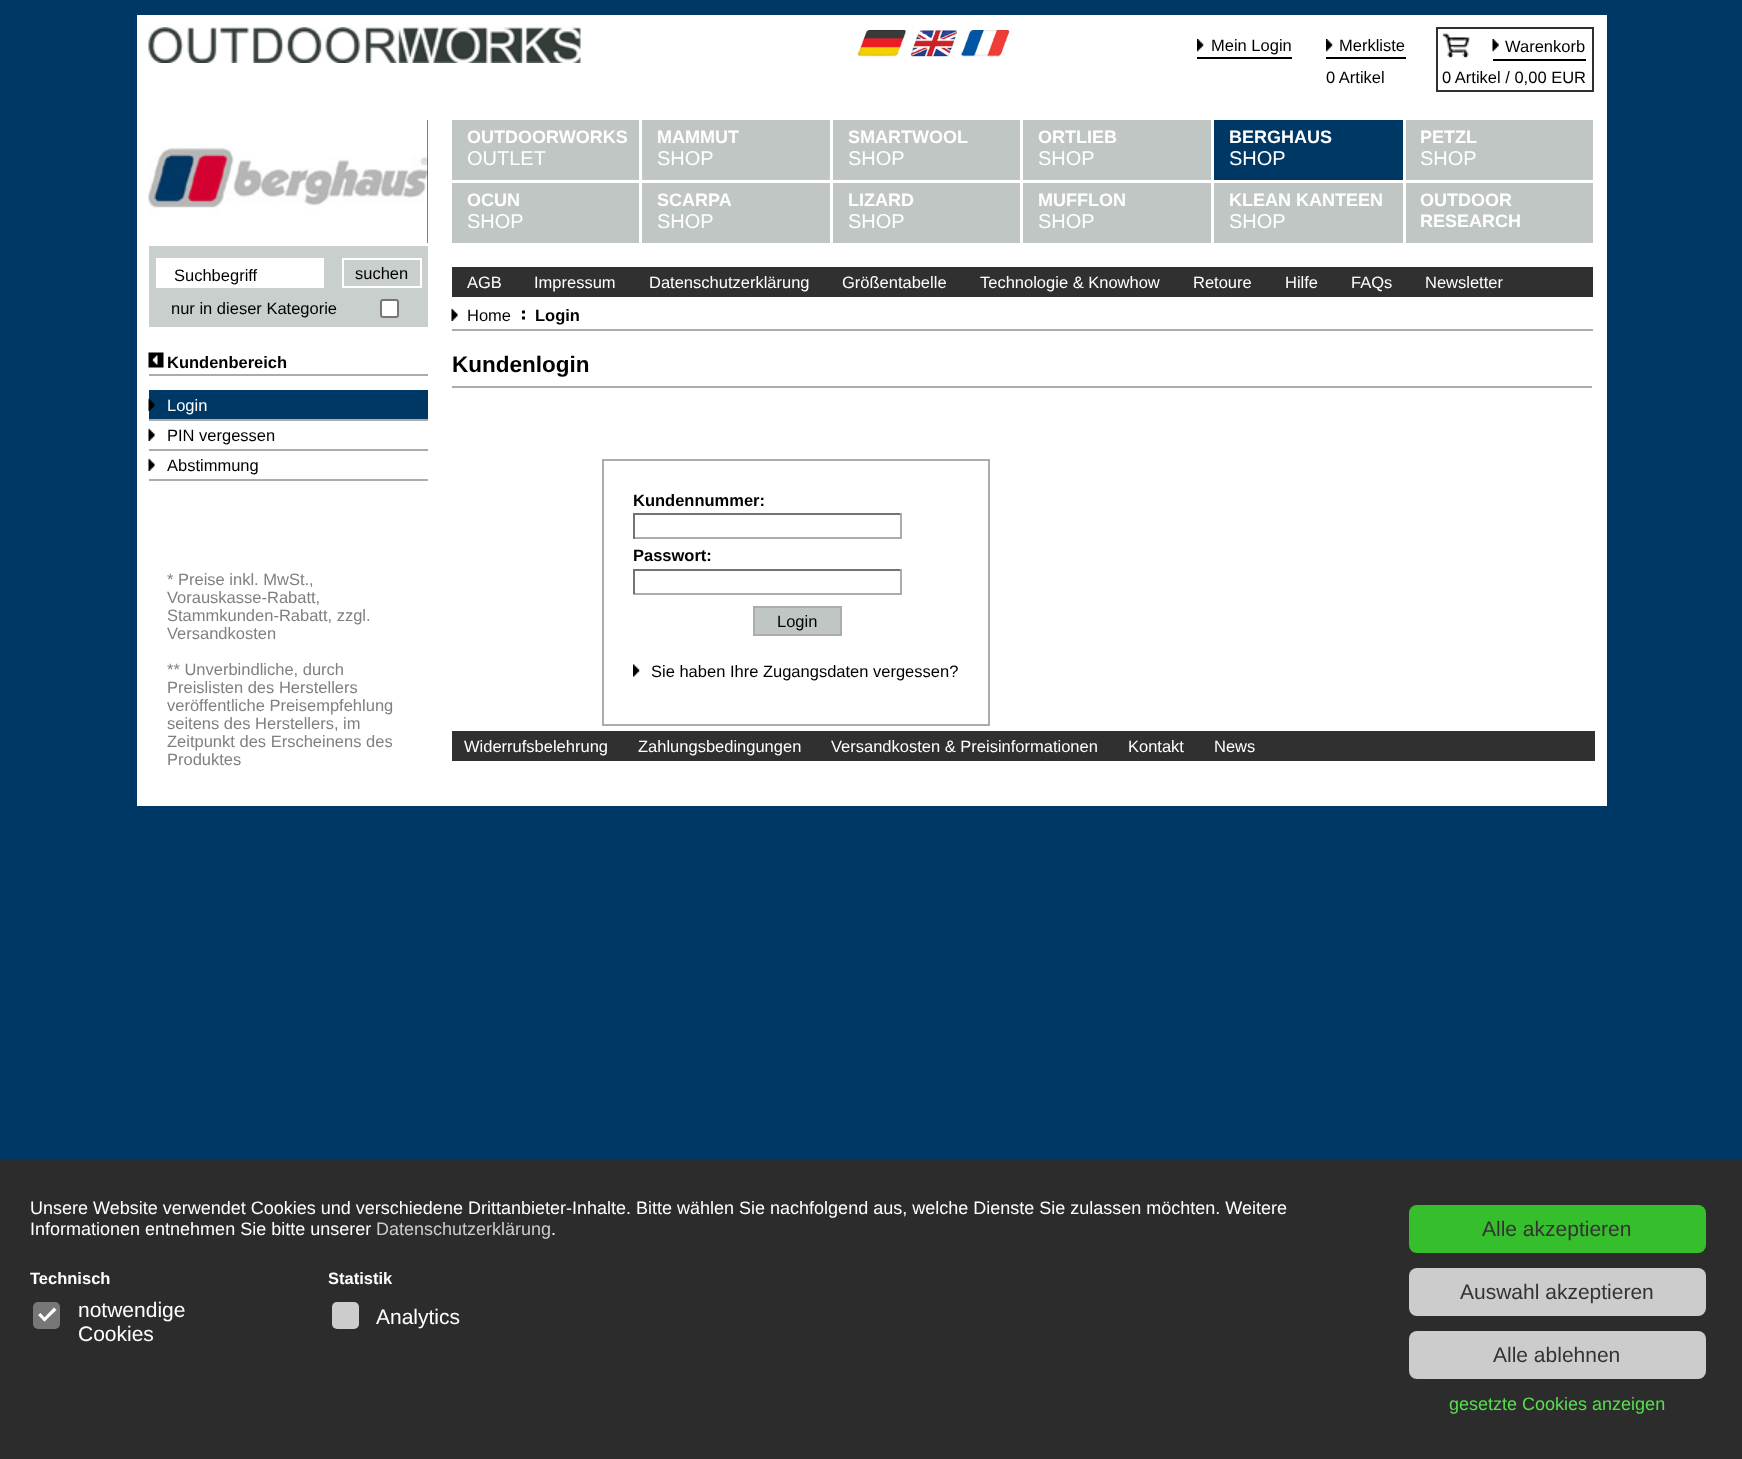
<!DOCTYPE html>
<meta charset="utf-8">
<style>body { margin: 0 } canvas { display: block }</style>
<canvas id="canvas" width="1742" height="1459"></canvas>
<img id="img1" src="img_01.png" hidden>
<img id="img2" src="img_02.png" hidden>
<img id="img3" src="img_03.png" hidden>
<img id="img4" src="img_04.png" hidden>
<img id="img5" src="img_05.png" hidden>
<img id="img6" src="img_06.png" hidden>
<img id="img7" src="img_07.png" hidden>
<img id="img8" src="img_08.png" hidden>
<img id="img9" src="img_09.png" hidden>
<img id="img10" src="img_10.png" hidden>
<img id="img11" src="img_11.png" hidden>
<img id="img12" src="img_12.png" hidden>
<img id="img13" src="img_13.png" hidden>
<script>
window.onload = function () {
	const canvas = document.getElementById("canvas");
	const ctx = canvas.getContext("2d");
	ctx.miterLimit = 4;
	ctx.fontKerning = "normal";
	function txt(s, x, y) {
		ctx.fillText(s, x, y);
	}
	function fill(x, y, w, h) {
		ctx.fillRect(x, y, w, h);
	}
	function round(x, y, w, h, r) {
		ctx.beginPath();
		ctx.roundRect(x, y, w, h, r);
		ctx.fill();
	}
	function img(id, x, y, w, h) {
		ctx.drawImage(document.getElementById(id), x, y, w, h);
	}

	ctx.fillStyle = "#003865";
	fill(0, 0, 1742, 1459);
	ctx.fillStyle = "#FFFFFF";
	fill(137, 15, 1470, 791);
	img("img1", 148, 27, 433, 36);
	img("img2", 858, 30, 48, 27);
	img("img3", 910, 30, 47, 27);
	img("img4", 961, 30, 49, 27);
	img("img5", 1197, 39, 7, 13);
	ctx.fillStyle = "#000000";
	fill(1197, 57, 95, 2);
	img("img5", 1326, 39, 7, 13);
	fill(1326, 57, 80, 2);
	ctx.fillStyle = "#303030";
	fill(1436, 27, 157, 2);
	fill(1436, 27, 2, 36);
	img("img6", 1442, 33, 28, 25);
	fill(1592, 27, 2, 65);
	img("img7", 1492, 39, 7, 13);
	ctx.fillStyle = "#000000";
	fill(1493, 59, 93, 2);
	ctx.fillStyle = "#303030";
	fill(1436, 90, 157, 2);
	fill(1436, 63, 2, 29);
	ctx.fillStyle = "#000000";
	fill(427, 120, 1, 123);
	img("img8", 148, 120, 280, 123);
	ctx.fillStyle = "#C9CFCD";
	fill(149, 246, 279, 81);
	ctx.fillStyle = "#FFFFFF";
	fill(156, 258, 168, 30);
	ctx.strokeStyle = "#FFFFFF";
	ctx.lineWidth = 2;
	ctx.strokeRect(343, 259, 78, 28);
	ctx.beginPath();
	ctx.roundRect(381, 300, 17, 17, 2);
	ctx.fill();
	ctx.strokeStyle = "#767676";
	ctx.stroke();
	img("img9", 148, 352, 16, 16);
	ctx.fillStyle = "#ACACAC";
	fill(149, 374, 279, 2);
	ctx.fillStyle = "#003865";
	fill(149, 390, 279, 29);
	img("img10", 148, 398, 7, 13);
	ctx.fillStyle = "#ACACAC";
	fill(149, 419, 279, 2);
	img("img11", 148, 428, 7, 13);
	fill(149, 449, 279, 2);
	img("img11", 148, 458, 7, 13);
	fill(149, 479, 279, 2);
	ctx.fillStyle = "#C0C6C4";
	fill(452, 120, 187, 60);
	fill(642, 120, 188, 60);
	fill(833, 120, 187, 60);
	fill(1023, 120, 188, 60);
	ctx.fillStyle = "#003865";
	fill(1214, 120, 189, 60);
	ctx.fillStyle = "#C0C6C4";
	fill(1406, 120, 187, 60);
	fill(452, 183, 187, 60);
	fill(642, 183, 188, 60);
	fill(833, 183, 187, 60);
	fill(1023, 183, 188, 60);
	fill(1214, 183, 189, 60);
	fill(1406, 183, 187, 60);
	ctx.fillStyle = "#303030";
	fill(452, 267, 1141, 30);
	ctx.fillStyle = "#ACACAC";
	fill(452, 329, 1141, 2);
	img("img11", 451, 308, 7, 13);
	img("img12", 522, 310, 3, 10);
	fill(452, 386, 1140, 2);
	ctx.strokeStyle = "#ACACAC";
	ctx.strokeRect(603, 460, 386, 265);
	ctx.fillStyle = "#737373";
	fill(633, 513, 269, 2);
	ctx.fillStyle = "#ACACAC";
	fill(900, 513, 2, 26);
	fill(633, 537, 269, 2);
	ctx.fillStyle = "#737373";
	fill(633, 513, 2, 26);
	fill(633, 569, 269, 2);
	ctx.fillStyle = "#ACACAC";
	fill(900, 569, 2, 25);
	fill(633, 593, 269, 2);
	ctx.fillStyle = "#737373";
	fill(633, 569, 2, 25);
	ctx.fillStyle = "#C0C6C4";
	ctx.beginPath();
	ctx.rect(754, 607, 87, 28);
	ctx.fill();
	ctx.stroke();
	img("img13", 633, 664, 7, 13);
	ctx.fillStyle = "#303030";
	fill(452, 731, 1143, 30);
	ctx.fillStyle = "#2C2C2C";
	fill(0, 1160, 1742, 299);
	ctx.fillStyle = "#777777";
	round(33, 1302, 27, 27, 5);
	ctx.fillStyle = "#FFFFFF";
	ctx.beginPath();
	ctx.moveTo(42.5, 1319.5);
	ctx.lineTo(54, 1307.5);
	ctx.lineTo(56.5, 1310);
	ctx.lineTo(44.5, 1321.5);
	ctx.closePath();
	ctx.fill();
	ctx.beginPath();
	ctx.moveTo(38, 1315);
	ctx.lineTo(40.5, 1313);
	ctx.lineTo(46.5, 1319.5);
	ctx.lineTo(44.5, 1321.5);
	ctx.closePath();
	ctx.fill();
	ctx.fillStyle = "#CCCCCC";
	round(332, 1302, 27, 27, 5);
	ctx.fillStyle = "#36BF2D";
	round(1409, 1205, 297, 48, 8);
	ctx.fillStyle = "#CCCCCC";
	round(1409, 1268, 297, 48, 8);
	round(1409, 1331, 297, 48, 8);
	ctx.font = "16.5px Liberation Sans";
	ctx.fillStyle = "#000000";
	txt("Mein Login", 1211, 51);
	txt("Merkliste", 1339, 51);
	txt("Warenkorb", 1505, 52);
	txt("0 Artikel", 1326, 83);
	txt("0 Artikel / 0,00 EUR", 1442, 83);
	txt("Suchbegriff", 174, 281);
	txt("suchen", 355, 279);
	txt("nur in dieser Kategorie", 171, 314);
	ctx.font = "bold 16.5px Liberation Sans";
	txt("Kundenbereich", 167, 368);
	ctx.font = "16.5px Liberation Sans";
	ctx.fillStyle = "#FFFFFF";
	txt("Login", 167, 411);
	ctx.fillStyle = "#000000";
	txt("PIN vergessen", 167, 441);
	txt("Abstimmung", 167, 471);
	ctx.fillStyle = "#808080";
	txt("* Preise inkl. MwSt.,", 167, 585);
	txt("Vorauskasse-Rabatt,", 167, 603);
	txt("Stammkunden-Rabatt, zzgl.", 167, 621);
	txt("Versandkosten", 167, 639);
	txt("** Unverbindliche, durch", 167, 675);
	txt("Preislisten des Herstellers", 167, 693);
	txt("veröffentliche Preisempfehlung", 167, 711);
	txt("seitens des Herstellers, im", 167, 729);
	txt("Zeitpunkt des Erscheinens des", 167, 747);
	txt("Produktes", 167, 765);
	ctx.font = "bold 18px Liberation Sans";
	ctx.fillStyle = "#FFFFFF";
	txt("OUTDOORWORKS", 467, 143);
	ctx.font = "20px Liberation Sans";
	txt("OUTLET", 467, 165);
	ctx.font = "bold 18px Liberation Sans";
	txt("MAMMUT", 657, 143);
	ctx.font = "20px Liberation Sans";
	txt("SHOP", 657, 165);
	ctx.font = "bold 18px Liberation Sans";
	txt("SMARTWOOL", 848, 143);
	ctx.font = "20px Liberation Sans";
	txt("SHOP", 848, 165);
	ctx.font = "bold 18px Liberation Sans";
	txt("ORTLIEB", 1038, 143);
	ctx.font = "20px Liberation Sans";
	txt("SHOP", 1038, 165);
	ctx.font = "bold 18px Liberation Sans";
	txt("BERGHAUS", 1229, 143);
	ctx.font = "20px Liberation Sans";
	txt("SHOP", 1229, 165);
	ctx.font = "bold 18px Liberation Sans";
	txt("PETZL", 1420, 143);
	ctx.font = "20px Liberation Sans";
	txt("SHOP", 1420, 165);
	ctx.font = "bold 18px Liberation Sans";
	txt("OCUN", 467, 206);
	ctx.font = "20px Liberation Sans";
	txt("SHOP", 467, 228);
	ctx.font = "bold 18px Liberation Sans";
	txt("SCARPA", 657, 206);
	ctx.font = "20px Liberation Sans";
	txt("SHOP", 657, 228);
	ctx.font = "bold 18px Liberation Sans";
	txt("LIZARD", 848, 206);
	ctx.font = "20px Liberation Sans";
	txt("SHOP", 848, 228);
	ctx.font = "bold 18px Liberation Sans";
	txt("MUFFLON", 1038, 206);
	ctx.font = "20px Liberation Sans";
	txt("SHOP", 1038, 228);
	ctx.font = "bold 18px Liberation Sans";
	txt("KLEAN KANTEEN", 1229, 206);
	ctx.font = "20px Liberation Sans";
	txt("SHOP", 1229, 228);
	ctx.font = "bold 18px Liberation Sans";
	txt("OUTDOOR", 1420, 206);
	txt("RESEARCH", 1420, 227);
	ctx.font = "16.5px Liberation Sans";
	txt("AGB", 467, 288);
	txt("Impressum", 534, 288);
	txt("Datenschutzerklärung", 649, 288);
	txt("Größentabelle", 842, 288);
	txt("Technologie & Knowhow", 980, 288);
	txt("Retoure", 1193, 288);
	txt("Hilfe", 1285, 288);
	txt("FAQs", 1351, 288);
	txt("Newsletter", 1425, 288);
	ctx.fillStyle = "#000000";
	txt("Home", 467, 321);
	ctx.font = "bold 16.5px Liberation Sans";
	txt("Login", 535, 321);
	ctx.font = "bold 22.5px Liberation Sans";
	txt("Kundenlogin", 452, 372);
	ctx.font = "bold 16.5px Liberation Sans";
	txt("Kundennummer:", 633, 506);
	txt("Passwort:", 633, 561);
	ctx.font = "16.5px Liberation Sans";
	txt("Login", 777, 627);
	txt("Sie haben Ihre Zugangsdaten vergessen?", 651, 677);
	ctx.fillStyle = "#FFFFFF";
	txt("Widerrufsbelehrung", 464, 752);
	txt("Zahlungsbedingungen", 638, 752);
	txt("Versandkosten & Preisinformationen", 831, 752);
	txt("Kontakt", 1128, 752);
	txt("News", 1214, 752);
	ctx.font = "18px Liberation Sans";
	txt("Unsere Website verwendet Cookies und verschiedene Drittanbieter-Inhalte. Bitte wählen Sie nachfolgend aus, welche Dienste Sie zulassen möchten. Weitere", 30, 1214);
	txt("Informationen entnehmen Sie bitte unserer", 30, 1235);
	ctx.fillStyle = "#CCCCCC";
	txt("Datenschutzerklärung", 376, 1235);
	ctx.fillStyle = "#FFFFFF";
	txt(".", 551, 1235);
	ctx.font = "bold 16.5px Liberation Sans";
	txt("Technisch", 30, 1284);
	ctx.font = "21px Liberation Sans";
	txt("notwendige", 78, 1317);
	txt("Cookies", 78, 1341);
	ctx.font = "bold 16.5px Liberation Sans";
	txt("Statistik", 328, 1284);
	ctx.font = "21px Liberation Sans";
	txt("Analytics", 376, 1324);
	ctx.fillStyle = "#333333";
	txt("Alle akzeptieren", 1482, 1236);
	txt("Auswahl akzeptieren", 1460, 1299);
	txt("Alle ablehnen", 1493, 1362);
	ctx.font = "18px Liberation Sans";
	ctx.fillStyle = "#56DF4D";
	txt("gesetzte Cookies anzeigen", 1449, 1410);
};
</script>
